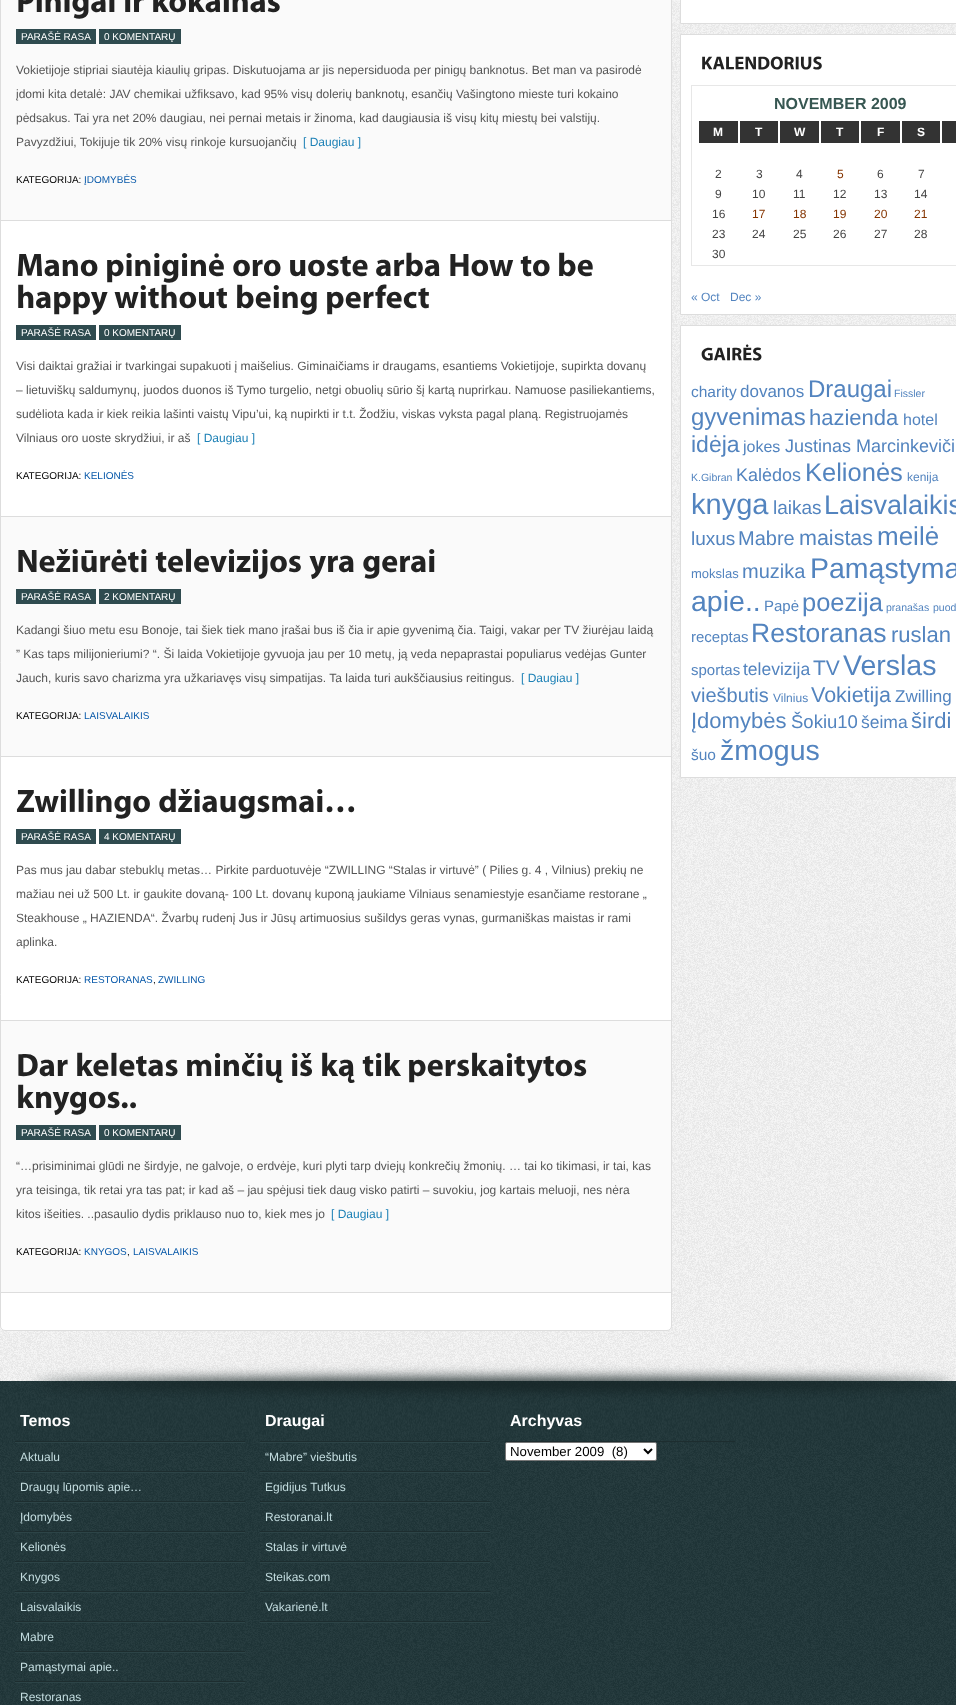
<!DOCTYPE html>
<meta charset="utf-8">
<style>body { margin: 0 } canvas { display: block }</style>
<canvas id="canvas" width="956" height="1705"></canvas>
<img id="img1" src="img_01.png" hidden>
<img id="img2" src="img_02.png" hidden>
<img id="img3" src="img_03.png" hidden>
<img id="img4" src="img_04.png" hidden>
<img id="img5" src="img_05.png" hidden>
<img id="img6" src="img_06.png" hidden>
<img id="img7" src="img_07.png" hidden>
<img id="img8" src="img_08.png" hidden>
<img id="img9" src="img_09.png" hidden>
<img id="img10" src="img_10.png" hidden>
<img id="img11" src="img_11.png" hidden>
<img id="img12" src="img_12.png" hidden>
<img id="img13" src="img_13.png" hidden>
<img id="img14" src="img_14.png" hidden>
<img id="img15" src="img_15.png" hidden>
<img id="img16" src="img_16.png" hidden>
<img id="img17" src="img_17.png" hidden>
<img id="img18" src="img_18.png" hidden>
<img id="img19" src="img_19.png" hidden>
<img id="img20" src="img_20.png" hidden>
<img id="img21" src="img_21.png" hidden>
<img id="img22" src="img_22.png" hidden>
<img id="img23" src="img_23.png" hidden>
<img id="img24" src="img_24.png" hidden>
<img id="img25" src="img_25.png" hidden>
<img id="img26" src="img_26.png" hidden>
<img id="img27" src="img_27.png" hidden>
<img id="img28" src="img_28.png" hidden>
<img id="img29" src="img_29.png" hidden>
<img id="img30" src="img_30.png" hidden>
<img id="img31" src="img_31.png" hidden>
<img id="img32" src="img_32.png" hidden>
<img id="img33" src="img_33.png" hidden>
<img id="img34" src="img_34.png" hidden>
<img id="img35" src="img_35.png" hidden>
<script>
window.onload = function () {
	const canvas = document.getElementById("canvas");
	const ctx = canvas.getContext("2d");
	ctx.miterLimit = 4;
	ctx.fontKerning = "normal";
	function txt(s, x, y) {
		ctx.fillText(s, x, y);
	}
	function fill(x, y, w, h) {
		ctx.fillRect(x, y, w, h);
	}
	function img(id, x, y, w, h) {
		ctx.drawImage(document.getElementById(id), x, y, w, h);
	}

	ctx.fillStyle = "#FFFFFF";
	fill(0, 0, 956, 1705);
	img("img1", 0, 0, 956, 1331);
	img("img2", 0, 1331, 956, 50);
	ctx.beginPath();
	ctx.roundRect(0.5, -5.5, 671, 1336, 4.5);
	ctx.fill();
	ctx.strokeStyle = "#DDDDDD";
	ctx.stroke();
	ctx.fillStyle = "#FAFAFA";
	fill(1, 0, 670, 220);
	ctx.fillStyle = "#DDDDDD";
	fill(1, 220, 670, 1);
	img("img3", 18, 0, 97, 19);
	img("img4", 125, 0, 19, 12);
	img("img5", 153, 0, 127, 13);
	ctx.fillStyle = "#2F4B4F";
	fill(16, 29, 80, 15);
	fill(99, 29, 82, 15);
	ctx.fillStyle = "#DDDDDD";
	fill(1, 516, 670, 1);
	img("img6", 17, 254, 81, 23);
	img("img7", 107, 253, 117, 30);
	img("img8", 233, 259, 48, 18);
	img("img9", 290, 255, 78, 22);
	img("img10", 376, 252, 64, 25);
	img("img11", 450, 254, 64, 23);
	img("img12", 520, 255, 30, 22);
	img("img13", 559, 252, 34, 25);
	img("img14", 18, 284, 90, 31);
	img("img15", 114, 284, 113, 25);
	img("img16", 237, 284, 80, 31);
	img("img17", 327, 284, 102, 31);
	ctx.fillStyle = "#2F4B4F";
	fill(16, 325, 80, 15);
	fill(99, 325, 82, 15);
	ctx.fillStyle = "#FAFAFA";
	fill(1, 517, 670, 239);
	ctx.fillStyle = "#DDDDDD";
	fill(1, 756, 670, 1);
	img("img18", 18, 549, 129, 24);
	img("img19", 155, 548, 146, 31);
	img("img20", 309, 555, 45, 24);
	img("img21", 363, 549, 72, 30);
	ctx.fillStyle = "#2F4B4F";
	fill(16, 589, 80, 15);
	fill(99, 589, 82, 15);
	ctx.fillStyle = "#DDDDDD";
	fill(1, 1020, 670, 1);
	img("img22", 16, 788, 134, 31);
	img("img23", 159, 788, 196, 31);
	ctx.fillStyle = "#2F4B4F";
	fill(16, 829, 80, 15);
	fill(99, 829, 82, 15);
	ctx.fillStyle = "#FAFAFA";
	fill(1, 1021, 670, 271);
	ctx.fillStyle = "#DDDDDD";
	fill(1, 1292, 670, 1);
	img("img24", 18, 1054, 50, 23);
	img("img25", 77, 1052, 101, 25);
	img("img26", 187, 1053, 96, 30);
	img("img27", 292, 1053, 20, 24);
	img("img28", 322, 1052, 33, 31);
	img("img29", 362, 1052, 39, 25);
	img("img30", 409, 1052, 178, 31);
	img("img31", 18, 1084, 118, 31);
	ctx.fillStyle = "#2F4B4F";
	fill(16, 1125, 80, 15);
	fill(99, 1125, 82, 15);
	ctx.fillStyle = "#FFFFFF";
	ctx.beginPath();
	ctx.rect(680.5, -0.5, 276, 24);
	ctx.fill();
	ctx.stroke();
	ctx.beginPath();
	ctx.rect(680.5, 34.5, 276, 280);
	ctx.fill();
	ctx.stroke();
	img("img32", 702, 56, 120, 14);
	ctx.strokeStyle = "#E7E7E7";
	ctx.strokeRect(691.5, 85.5, 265, 180);
	ctx.fillStyle = "#333333";
	fill(699, 121, 39, 22);
	fill(740, 121, 38, 22);
	fill(780, 121, 39, 22);
	fill(821, 121, 38, 22);
	fill(861, 121, 39, 22);
	fill(902, 121, 38, 22);
	fill(942, 121, 14, 22);
	ctx.fillStyle = "#FFFFFF";
	ctx.beginPath();
	ctx.rect(680.5, 325.5, 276, 452);
	ctx.fill();
	ctx.strokeStyle = "#DDDDDD";
	ctx.stroke();
	img("img33", 701, 344, 61, 17);
	img("img34", 0, 1454, 956, 251);
	img("img35", 0, 1381, 956, 73);
	ctx.fillStyle = "#1D2D2F";
	fill(15, 1441, 230, 1);
	ctx.fillStyle = "#2C4447";
	fill(15, 1442, 230, 1);
	ctx.fillStyle = "#1D2D2F";
	fill(15, 1471, 230, 1);
	ctx.fillStyle = "#2C4447";
	fill(15, 1472, 230, 1);
	ctx.fillStyle = "#1D2D2F";
	fill(15, 1501, 230, 1);
	ctx.fillStyle = "#2C4447";
	fill(15, 1502, 230, 1);
	ctx.fillStyle = "#1D2D2F";
	fill(15, 1531, 230, 1);
	ctx.fillStyle = "#2C4447";
	fill(15, 1532, 230, 1);
	ctx.fillStyle = "#1D2D2F";
	fill(15, 1561, 230, 1);
	ctx.fillStyle = "#2C4447";
	fill(15, 1562, 230, 1);
	ctx.fillStyle = "#1D2D2F";
	fill(15, 1591, 230, 1);
	ctx.fillStyle = "#2C4447";
	fill(15, 1592, 230, 1);
	ctx.fillStyle = "#1D2D2F";
	fill(15, 1621, 230, 1);
	ctx.fillStyle = "#2C4447";
	fill(15, 1622, 230, 1);
	ctx.fillStyle = "#1D2D2F";
	fill(15, 1651, 230, 1);
	ctx.fillStyle = "#2C4447";
	fill(15, 1652, 230, 1);
	ctx.fillStyle = "#1D2D2F";
	fill(15, 1681, 230, 1);
	ctx.fillStyle = "#2C4447";
	fill(15, 1682, 230, 1);
	ctx.fillStyle = "#1D2D2F";
	fill(260, 1441, 230, 1);
	ctx.fillStyle = "#2C4447";
	fill(260, 1622, 230, 1);
	fill(260, 1442, 230, 1);
	ctx.fillStyle = "#1D2D2F";
	fill(260, 1471, 230, 1);
	ctx.fillStyle = "#2C4447";
	fill(260, 1472, 230, 1);
	ctx.fillStyle = "#1D2D2F";
	fill(260, 1501, 230, 1);
	ctx.fillStyle = "#2C4447";
	fill(260, 1502, 230, 1);
	ctx.fillStyle = "#1D2D2F";
	fill(260, 1531, 230, 1);
	ctx.fillStyle = "#2C4447";
	fill(260, 1532, 230, 1);
	ctx.fillStyle = "#1D2D2F";
	fill(260, 1561, 230, 1);
	ctx.fillStyle = "#2C4447";
	fill(260, 1562, 230, 1);
	ctx.fillStyle = "#1D2D2F";
	fill(260, 1591, 230, 1);
	ctx.fillStyle = "#2C4447";
	fill(260, 1592, 230, 1);
	ctx.fillStyle = "#1D2D2F";
	fill(260, 1621, 230, 1);
	fill(505, 1441, 230, 1);
	ctx.fillStyle = "#FFFFFF";
	ctx.beginPath();
	ctx.roundRect(505.5, 1442.5, 151, 18, 1.5);
	ctx.fill();
	ctx.strokeStyle = "#767676";
	ctx.stroke();
	ctx.beginPath();
	ctx.moveTo(644, 1449);
	ctx.lineTo(648, 1453);
	ctx.lineTo(652, 1449);
	ctx.strokeStyle = "#000000";
	ctx.lineWidth = 2;
	ctx.stroke();
	ctx.font = "10px Liberation Sans";
	txt("PARAŠĖ RASA", 21, 40);
	txt("0 KOMENTARŲ", 104, 40);
	ctx.font = "12px Liberation Sans";
	ctx.fillStyle = "#555555";
	txt("Vokietijoje stipriai siautėja kiaulių gripas. Diskutuojama ar jis nepersiduoda per pinigų banknotus. Bet man va pasirodė", 16, 74);
	txt("įdomi kita detalė: JAV chemikai užfiksavo, kad 95% visų dolerių banknotų, esančių Vašingtono mieste turi kokaino", 16, 98);
	txt("pėdsakus. Tai yra net 20% daugiau, nei pernai metais ir žinoma, kad daugiausia iš visų kitų miestų bei valstijų.", 16, 122);
	txt("Pavyzdžiui, Tokijuje tik 20% visų rinkoje kursuojančių", 16, 146);
	ctx.fillStyle = "#1D81B6";
	txt("[ Daugiau ]", 303, 146);
	ctx.font = "10px Liberation Sans";
	ctx.fillStyle = "#000000";
	txt("KATEGORIJA:", 16, 183);
	ctx.fillStyle = "#0758A9";
	txt("ĮDOMYBĖS", 84, 183);
	ctx.fillStyle = "#FFFFFF";
	txt("PARAŠĖ RASA", 21, 336);
	txt("0 KOMENTARŲ", 104, 336);
	ctx.font = "12px Liberation Sans";
	ctx.fillStyle = "#555555";
	txt("Visi daiktai gražiai ir tvarkingai supakuoti į maišelius. Giminaičiams ir draugams, esantiems Vokietijoje, supirkta dovanų", 16, 370);
	txt("– lietuviškų saldumynų, juodos duonos iš Tymo turgelio, netgi obuolių sūrio šį kartą nuprirkau. Namuose pasiliekantiems,", 16, 394);
	txt("sudėliota kada ir kiek reikia lašinti vaistų Vipu’ui, ką nupirkti ir t.t. Žodžiu, viskas vyksta pagal planą. Registruojamės", 16, 418);
	txt("Vilniaus oro uoste skrydžiui, ir aš", 16, 442);
	ctx.fillStyle = "#1D81B6";
	txt("[ Daugiau ]", 197, 442);
	ctx.font = "10px Liberation Sans";
	ctx.fillStyle = "#000000";
	txt("KATEGORIJA:", 16, 479);
	ctx.fillStyle = "#0758A9";
	txt("KELIONĖS", 84, 479);
	ctx.fillStyle = "#FFFFFF";
	txt("PARAŠĖ RASA", 21, 600);
	txt("2 KOMENTARŲ", 104, 600);
	ctx.font = "12px Liberation Sans";
	ctx.fillStyle = "#555555";
	txt("Kadangi šiuo metu esu Bonoje, tai šiek tiek mano įrašai bus iš čia ir apie gyvenimą čia. Taigi, vakar per TV žiurėjau laidą", 16, 634);
	txt("” Kas taps milijonieriumi? “. Ši laida Vokietijoje gyvuoja jau per 10 metų, ją veda nepaprastai populiarus vedėjas Gunter", 16, 658);
	txt("Jauch, kuris savo charizma yra užkariavęs visų simpatijas. Ta laida turi aukščiausius reitingus.", 16, 682);
	ctx.fillStyle = "#1D81B6";
	txt("[ Daugiau ]", 521, 682);
	ctx.font = "10px Liberation Sans";
	ctx.fillStyle = "#000000";
	txt("KATEGORIJA:", 16, 719);
	ctx.fillStyle = "#0758A9";
	txt("LAISVALAIKIS", 84, 719);
	ctx.fillStyle = "#FFFFFF";
	txt("PARAŠĖ RASA", 21, 840);
	txt("4 KOMENTARŲ", 104, 840);
	ctx.font = "12px Liberation Sans";
	ctx.fillStyle = "#555555";
	txt("Pas mus jau dabar stebuklų metas… Pirkite parduotuvėje “ZWILLING “Stalas ir virtuvė” ( Pilies g. 4 , Vilnius) prekių ne", 16, 874);
	txt("mažiau nei už 500 Lt. ir gaukite dovaną- 100 Lt. dovanų kuponą jaukiame Vilniaus senamiestyje esančiame restorane „", 16, 898);
	txt("Steakhouse „ HAZIENDA“. Žvarbų rudenį Jus ir Jūsų artimuosius sušildys geras vynas, gurmaniškas maistas ir rami", 16, 922);
	txt("aplinka.", 16, 946);
	ctx.font = "10px Liberation Sans";
	ctx.fillStyle = "#000000";
	txt("KATEGORIJA:", 16, 983);
	ctx.fillStyle = "#0758A9";
	txt("RESTORANAS", 84, 983);
	ctx.fillStyle = "#000000";
	txt(",", 153, 983);
	ctx.fillStyle = "#0758A9";
	txt("ZWILLING", 158, 983);
	ctx.fillStyle = "#FFFFFF";
	txt("PARAŠĖ RASA", 21, 1136);
	txt("0 KOMENTARŲ", 104, 1136);
	ctx.font = "12px Liberation Sans";
	ctx.fillStyle = "#555555";
	txt("“…prisiminimai glūdi ne širdyje, ne galvoje, o erdvėje, kuri plyti tarp dviejų konkrečių žmonių. … tai ko tikimasi, ir tai, kas", 16, 1170);
	txt("yra teisinga, tik retai yra tas pat; ir kad aš – jau spėjusi tiek daug visko patirti – suvokiu, jog kartais meluoji, nes nėra", 16, 1194);
	txt("kitos išeities. ..pasaulio dydis priklauso nuo to, kiek mes jo", 16, 1218);
	ctx.fillStyle = "#1D81B6";
	txt("[ Daugiau ]", 331, 1218);
	ctx.font = "10px Liberation Sans";
	ctx.fillStyle = "#000000";
	txt("KATEGORIJA:", 16, 1255);
	ctx.fillStyle = "#0758A9";
	txt("KNYGOS", 84, 1255);
	ctx.fillStyle = "#000000";
	txt(",", 127, 1255);
	ctx.fillStyle = "#0758A9";
	txt("LAISVALAIKIS", 133, 1255);
	ctx.font = "bold 16px Liberation Sans";
	ctx.fillStyle = "#375752";
	txt("NOVEMBER 2009", 774, 109);
	ctx.font = "bold 12px Liberation Sans";
	ctx.fillStyle = "#FFFFFF";
	txt("M", 713, 136);
	txt("T", 755, 136);
	txt("W", 794, 136);
	txt("T", 836, 136);
	txt("F", 877, 136);
	txt("S", 917, 136);
	ctx.font = "12px Liberation Sans";
	ctx.fillStyle = "#444444";
	txt("2", 715, 178);
	txt("3", 756, 178);
	txt("4", 796, 178);
	ctx.fillStyle = "#843400";
	txt("5", 837, 178);
	ctx.fillStyle = "#444444";
	txt("6", 877, 178);
	txt("7", 918, 178);
	txt("9", 715, 198);
	txt("10", 752, 198);
	txt("11", 793, 198);
	txt("12", 833, 198);
	txt("13", 874, 198);
	txt("14", 914, 198);
	txt("16", 712, 218);
	ctx.fillStyle = "#843400";
	txt("17", 752, 218);
	txt("18", 793, 218);
	txt("19", 833, 218);
	txt("20", 874, 218);
	txt("21", 914, 218);
	ctx.fillStyle = "#444444";
	txt("23", 712, 238);
	txt("24", 752, 238);
	txt("25", 793, 238);
	txt("26", 833, 238);
	txt("27", 874, 238);
	txt("28", 914, 238);
	txt("30", 712, 258);
	ctx.fillStyle = "#5384BF";
	txt("« Oct", 691, 301);
	txt("Dec »", 730, 301);
	ctx.font = "15.5px Liberation Sans";
	txt("charity", 691, 397);
	ctx.font = "17px Liberation Sans";
	txt("dovanos", 740, 397);
	ctx.font = "24px Liberation Sans";
	txt("Draugai", 808, 397);
	ctx.font = "10.5px Liberation Sans";
	txt("Fissler", 894, 397);
	ctx.font = "24px Liberation Sans";
	txt("gyvenimas", 691, 425);
	ctx.font = "22px Liberation Sans";
	txt("hazienda", 809, 425);
	ctx.font = "16px Liberation Sans";
	txt("hotel", 903, 425);
	ctx.font = "23px Liberation Sans";
	txt("idėja", 691, 452);
	ctx.font = "16px Liberation Sans";
	txt("jokes", 743, 452);
	ctx.font = "18px Liberation Sans";
	txt("Justinas Marcinkeviči", 785, 452);
	ctx.font = "10.5px Liberation Sans";
	txt("K.Gibran", 691, 481);
	ctx.font = "18px Liberation Sans";
	txt("Kalėdos", 736, 481);
	ctx.font = "25.5px Liberation Sans";
	txt("Kelionės", 805, 481);
	ctx.font = "12px Liberation Sans";
	txt("kenija", 907, 481);
	ctx.font = "29px Liberation Sans";
	txt("knyga", 691, 514);
	ctx.font = "19px Liberation Sans";
	txt("laikas", 773, 514);
	ctx.font = "27px Liberation Sans";
	txt("Laisvalaikis", 824, 514);
	ctx.font = "19px Liberation Sans";
	txt("luxus", 691, 545);
	ctx.font = "20px Liberation Sans";
	txt("Mabre", 738, 545);
	ctx.font = "21.5px Liberation Sans";
	txt("maistas", 799, 545);
	ctx.font = "26px Liberation Sans";
	txt("meilė", 877, 545);
	ctx.font = "13px Liberation Sans";
	txt("mokslas", 691, 578);
	ctx.font = "20px Liberation Sans";
	txt("muzika", 742, 578);
	ctx.font = "28.5px Liberation Sans";
	txt("Pamąstyma", 810, 578);
	txt("apie..", 691, 611);
	ctx.font = "15px Liberation Sans";
	txt("Papė", 764, 611);
	ctx.font = "25.5px Liberation Sans";
	txt("poezija", 802, 611);
	ctx.font = "10.5px Liberation Sans";
	txt("pranašas", 886, 611);
	txt("puod", 933, 611);
	ctx.font = "15px Liberation Sans";
	txt("receptas", 691, 642);
	ctx.font = "26.5px Liberation Sans";
	txt("Restoranas", 751, 642);
	ctx.font = "22px Liberation Sans";
	txt("ruslan", 891, 642);
	ctx.font = "15px Liberation Sans";
	txt("sportas", 691, 675);
	ctx.font = "17.5px Liberation Sans";
	txt("televizija", 743, 675);
	ctx.font = "21px Liberation Sans";
	txt("TV", 813, 675);
	ctx.font = "28.5px Liberation Sans";
	txt("Verslas", 843, 675);
	ctx.font = "20px Liberation Sans";
	txt("viešbutis", 691, 702);
	ctx.font = "12px Liberation Sans";
	txt("Vilnius", 773, 702);
	ctx.font = "21.5px Liberation Sans";
	txt("Vokietija", 811, 702);
	ctx.font = "17px Liberation Sans";
	txt("Zwilling", 895, 702);
	ctx.font = "22px Liberation Sans";
	txt("Įdomybės", 691, 728);
	ctx.font = "18.5px Liberation Sans";
	txt("Šokiu10", 791, 728);
	ctx.font = "17.5px Liberation Sans";
	txt("šeima", 861, 728);
	ctx.font = "22px Liberation Sans";
	txt("širdi", 911, 728);
	ctx.font = "15.5px Liberation Sans";
	txt("šuo", 691, 760);
	ctx.font = "28.5px Liberation Sans";
	txt("žmogus", 720, 760);
	ctx.font = "bold 16px Liberation Sans";
	ctx.fillStyle = "#FFFFFF";
	txt("Temos", 20, 1426);
	ctx.font = "12px Liberation Sans";
	ctx.fillStyle = "#C3DCDF";
	txt("Aktualu", 20, 1461);
	txt("Draugų lūpomis apie…", 20, 1491);
	txt("Įdomybės", 20, 1521);
	txt("Kelionės", 20, 1551);
	txt("Knygos", 20, 1581);
	txt("Laisvalaikis", 20, 1611);
	txt("Mabre", 20, 1641);
	txt("Pamąstymai apie..", 20, 1671);
	txt("Restoranas", 20, 1701);
	ctx.font = "bold 16px Liberation Sans";
	ctx.fillStyle = "#FFFFFF";
	txt("Draugai", 265, 1426);
	ctx.font = "12px Liberation Sans";
	ctx.fillStyle = "#C3DCDF";
	txt("“Mabre” viešbutis", 265, 1461);
	txt("Egidijus Tutkus", 265, 1491);
	txt("Restoranai.lt", 265, 1521);
	txt("Stalas ir virtuvė", 265, 1551);
	txt("Steikas.com", 265, 1581);
	txt("Vakarienė.lt", 265, 1611);
	ctx.font = "bold 16px Liberation Sans";
	ctx.fillStyle = "#FFFFFF";
	txt("Archyvas", 510, 1426);
	ctx.font = "13.25px Liberation Sans";
	ctx.fillStyle = "#000000";
	txt("November 2009  (8)", 510, 1456);
};
</script>
